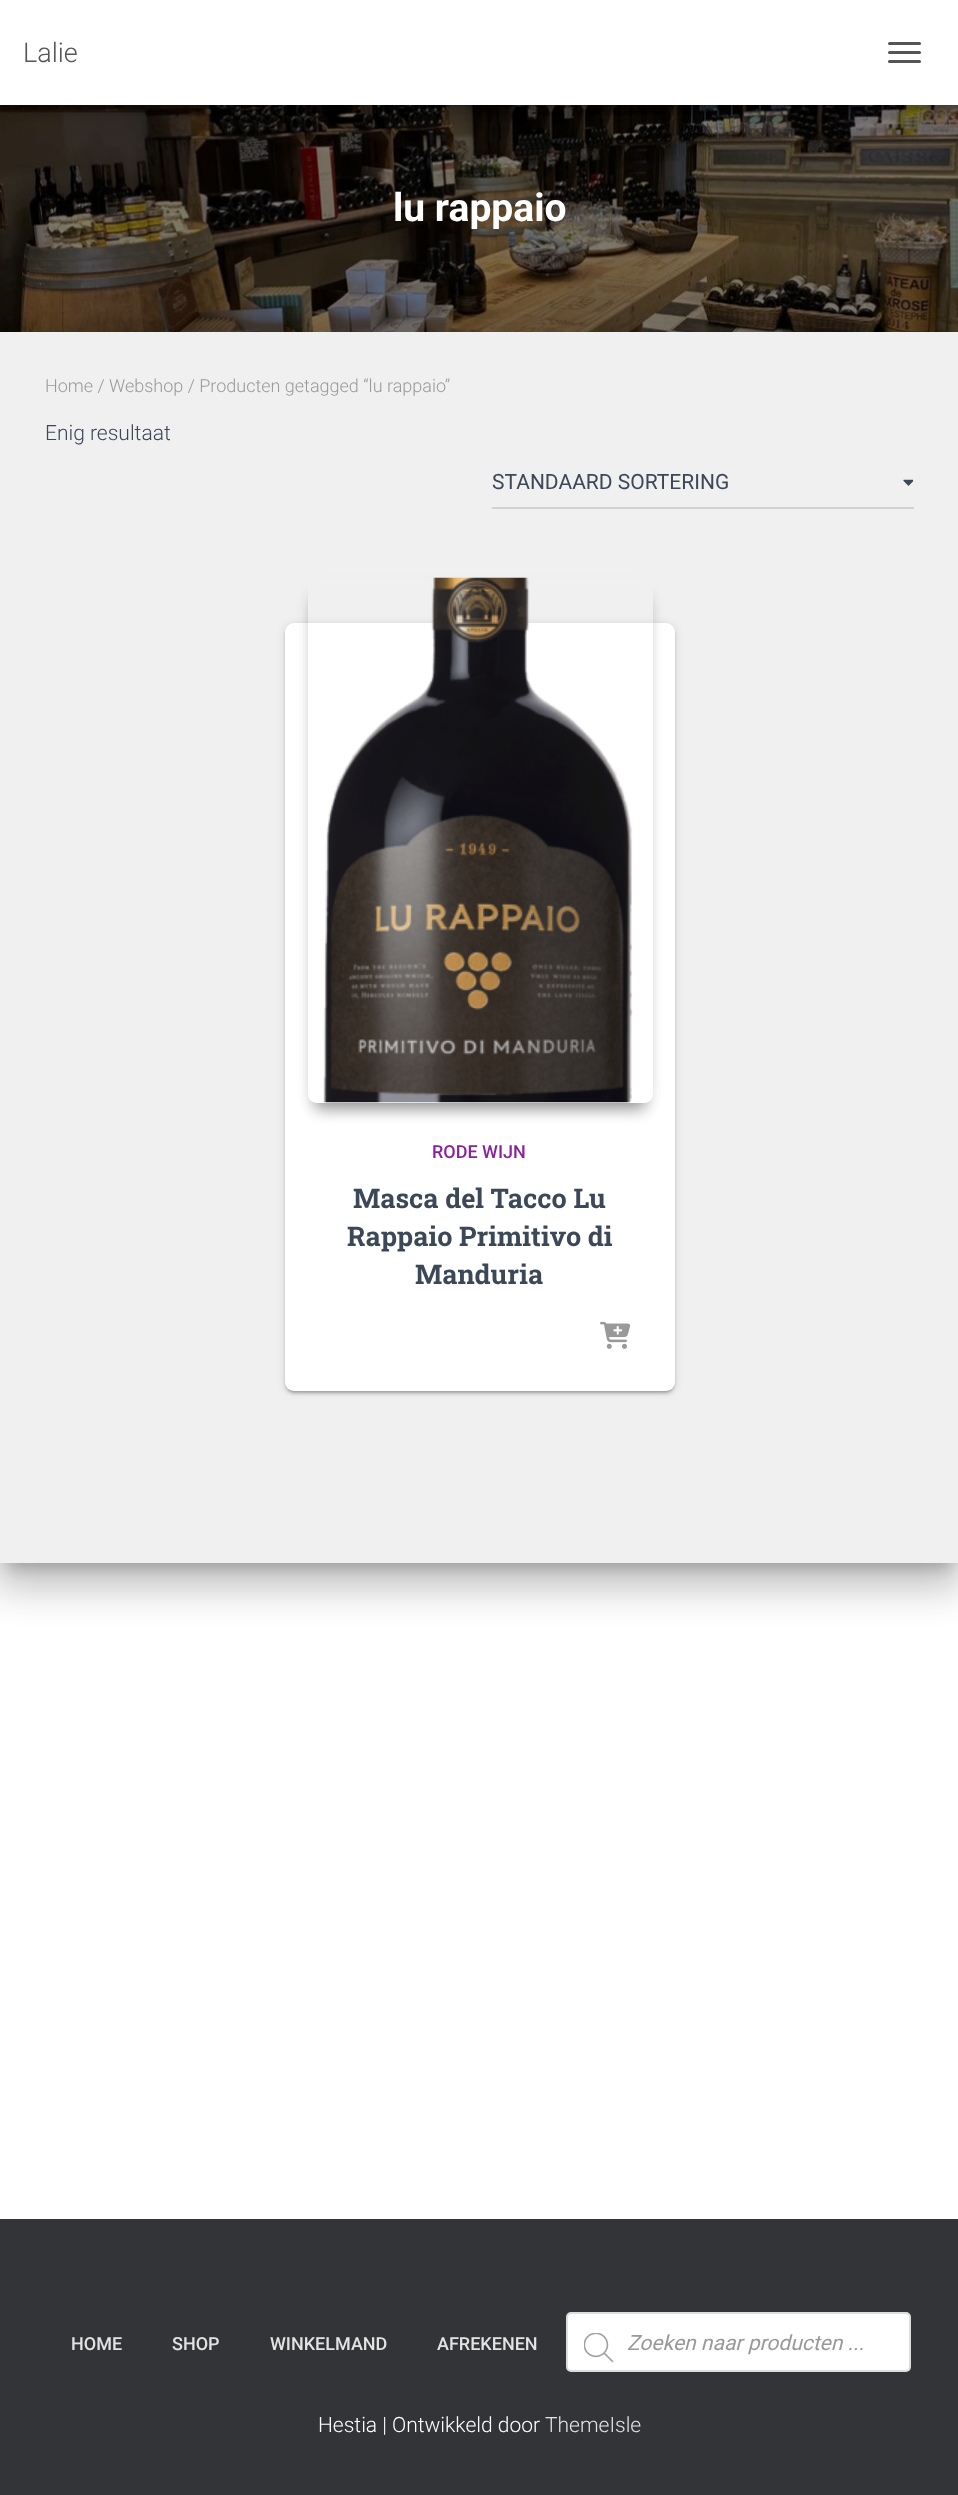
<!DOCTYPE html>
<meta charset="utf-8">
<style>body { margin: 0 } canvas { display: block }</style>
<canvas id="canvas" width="958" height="2495"></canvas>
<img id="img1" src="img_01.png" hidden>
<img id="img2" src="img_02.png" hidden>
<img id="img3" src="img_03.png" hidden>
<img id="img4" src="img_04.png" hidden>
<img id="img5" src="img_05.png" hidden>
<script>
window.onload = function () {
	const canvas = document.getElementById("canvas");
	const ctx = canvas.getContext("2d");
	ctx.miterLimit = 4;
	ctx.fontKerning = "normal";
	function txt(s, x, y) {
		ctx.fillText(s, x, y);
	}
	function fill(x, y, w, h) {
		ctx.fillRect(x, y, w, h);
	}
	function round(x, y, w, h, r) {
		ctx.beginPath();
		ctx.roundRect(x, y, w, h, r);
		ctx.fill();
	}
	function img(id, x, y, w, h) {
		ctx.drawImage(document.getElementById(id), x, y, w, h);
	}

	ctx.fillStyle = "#FFFFFF";
	fill(0, 0, 958, 2495);
	img("img1", 0, 105, 958, 227);
	ctx.fillStyle = "rgba(0, 0, 0, 0.1)";
	ctx.filter = "blur(4px)";
	ctx.beginPath();
	ctx.rect(3, 9, 953, 99);
	ctx.fill();
	ctx.filter = "none";
	ctx.fillStyle = "rgba(0, 0, 0, 0.12)";
	ctx.filter = "blur(7.5px)";
	ctx.beginPath();
	ctx.rect(0, 2, 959, 105);
	ctx.fill();
	ctx.filter = "none";
	ctx.fillStyle = "rgba(0, 0, 0, 0.42)";
	ctx.filter = "blur(7.5px)";
	ctx.beginPath();
	ctx.rect(9, 11, 941, 87);
	ctx.fill();
	ctx.filter = "none";
	ctx.fillStyle = "#FFFFFF";
	fill(0, 0, 958, 105);
	ctx.fillStyle = "#555555";
	round(888, 42, 33, 3, 1.5);
	round(888, 51, 33, 3, 1.5);
	round(888, 60, 33, 3, 1.5);
	ctx.fillStyle = "rgba(0, 0, 0, 0.2)";
	ctx.filter = "blur(7.5px)";
	ctx.beginPath();
	ctx.rect(8, 351, 943, 1217);
	ctx.fill();
	ctx.filter = "none";
	ctx.fillStyle = "rgba(0, 0, 0, 0.12)";
	ctx.filter = "blur(22.5px)";
	ctx.beginPath();
	ctx.rect(-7, 333, 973, 1247);
	ctx.fill();
	ctx.filter = "none";
	ctx.fillStyle = "rgba(0, 0, 0, 0.14)";
	ctx.filter = "blur(18px)";
	ctx.beginPath();
	ctx.rect(-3, 353, 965, 1237);
	ctx.fill();
	ctx.filter = "none";
	ctx.fillStyle = "#F0F0F0";
	fill(0, 332, 958, 1231);
	ctx.fillStyle = "#D2D2D2";
	fill(492, 507, 422, 2);
	img("img2", 903, 479, 11, 7);
	ctx.fillStyle = "rgba(0, 0, 0, 0.12)";
	ctx.filter = "blur(4px)";
	ctx.beginPath();
	ctx.roundRect(285, 624, 390, 768, 9);
	ctx.fill();
	ctx.filter = "none";
	ctx.fillStyle = "rgba(0, 0, 0, 0.2)";
	ctx.filter = "blur(1px)";
	ctx.beginPath();
	ctx.roundRect(288, 630, 384, 762, 6);
	ctx.fill();
	ctx.filter = "none";
	ctx.fillStyle = "rgba(0, 0, 0, 0.14)";
	ctx.filter = "blur(1.5px)";
	ctx.beginPath();
	ctx.roundRect(285, 626, 390, 768, 9);
	ctx.fill();
	ctx.filter = "none";
	ctx.fillStyle = "#FFFFFF";
	round(285, 623, 390, 768, 9);
	ctx.save();
	ctx.beginPath();
	ctx.moveTo(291, 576);
	ctx.lineTo(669, 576);
	ctx.lineTo(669, 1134);
	ctx.lineTo(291, 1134);
	ctx.closePath();
	ctx.moveTo(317, 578);
	ctx.lineTo(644, 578);
	ctx.bezierCurveTo(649, 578, 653, 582, 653, 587);
	ctx.lineTo(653, 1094);
	ctx.bezierCurveTo(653, 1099, 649, 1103, 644, 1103);
	ctx.lineTo(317, 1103);
	ctx.bezierCurveTo(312, 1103, 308, 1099, 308, 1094);
	ctx.lineTo(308, 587);
	ctx.bezierCurveTo(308, 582, 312, 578, 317, 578);
	ctx.closePath();
	ctx.clip("evenodd");
	ctx.fillStyle = "rgba(0, 0, 0, 0.2)";
	ctx.filter = "blur(7.5px)";
	ctx.beginPath();
	ctx.roundRect(315, 600, 330, 510, 1.5);
	ctx.fill();
	ctx.filter = "none";
	ctx.restore();
	ctx.save();
	ctx.beginPath();
	ctx.moveTo(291, 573);
	ctx.lineTo(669, 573);
	ctx.lineTo(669, 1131);
	ctx.lineTo(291, 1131);
	ctx.closePath();
	ctx.moveTo(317, 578);
	ctx.lineTo(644, 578);
	ctx.bezierCurveTo(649, 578, 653, 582, 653, 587);
	ctx.lineTo(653, 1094);
	ctx.bezierCurveTo(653, 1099, 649, 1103, 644, 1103);
	ctx.lineTo(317, 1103);
	ctx.bezierCurveTo(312, 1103, 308, 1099, 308, 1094);
	ctx.lineTo(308, 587);
	ctx.bezierCurveTo(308, 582, 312, 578, 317, 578);
	ctx.closePath();
	ctx.clip("evenodd");
	ctx.fillStyle = "rgba(0, 0, 0, 0.2)";
	ctx.filter = "blur(7.5px)";
	ctx.beginPath();
	ctx.roundRect(315, 597, 330, 510, 1.5);
	ctx.fill();
	ctx.filter = "none";
	ctx.restore();
	ctx.save();
	ctx.beginPath();
	ctx.moveTo(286, 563);
	ctx.lineTo(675, 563);
	ctx.lineTo(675, 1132);
	ctx.lineTo(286, 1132);
	ctx.closePath();
	ctx.moveTo(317, 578);
	ctx.lineTo(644, 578);
	ctx.bezierCurveTo(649, 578, 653, 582, 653, 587);
	ctx.lineTo(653, 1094);
	ctx.bezierCurveTo(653, 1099, 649, 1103, 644, 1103);
	ctx.lineTo(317, 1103);
	ctx.bezierCurveTo(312, 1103, 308, 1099, 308, 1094);
	ctx.lineTo(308, 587);
	ctx.bezierCurveTo(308, 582, 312, 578, 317, 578);
	ctx.closePath();
	ctx.clip("evenodd");
	ctx.fillStyle = "rgba(0, 0, 0, 0.24)";
	ctx.filter = "blur(11px)";
	ctx.beginPath();
	ctx.rect(320, 597, 321, 501);
	ctx.fill();
	ctx.filter = "none";
	ctx.restore();
	img("img3", 323, 577, 310, 526);
	img("img4", 600, 1321, 31, 28);
	ctx.fillStyle = "#323437";
	fill(0, 2219, 958, 276);
	ctx.fillStyle = "#FFFFFF";
	ctx.beginPath();
	ctx.roundRect(567, 2313, 343, 58, 4);
	ctx.fill();
	ctx.strokeStyle = "#DDDDDD";
	ctx.lineWidth = 2;
	ctx.stroke();
	img("img5", 584, 2333, 30, 30);
	ctx.font = "300 27px Roboto";
	ctx.fillStyle = "#555555";
	txt("Lalie", 23, 62);
	ctx.font = "bold 39px Roboto";
	ctx.fillStyle = "#FFFFFF";
	txt("lu rappaio", 393, 221);
	ctx.font = "300 18px Roboto";
	ctx.fillStyle = "#999999";
	txt("Home / Webshop / Producten getagged “lu rappaio”", 45, 392);
	ctx.font = "300 21px Roboto";
	ctx.fillStyle = "#3C4858";
	txt("Enig resultaat", 45, 440);
	ctx.font = "21px Roboto";
	txt("STANDAARD SORTERING", 492, 489);
	ctx.font = "500 18px Roboto";
	ctx.fillStyle = "#89229B";
	txt("RODE WIJN", 432, 1158);
	ctx.font = "bold 27px Roboto Slab";
	ctx.fillStyle = "#3C4858";
	txt("Masca del Tacco Lu", 353, 1208);
	txt("Rappaio Primitivo di", 347, 1246);
	txt("Manduria", 415, 1284);
	ctx.font = "500 18px Roboto";
	ctx.fillStyle = "#E2E3E3";
	txt("HOME", 71, 2350);
	txt("SHOP", 172, 2350);
	txt("WINKELMAND", 270, 2350);
	txt("AFREKENEN", 437, 2350);
	ctx.font = "italic 21px Roboto";
	ctx.fillStyle = "#999999";
	txt("Zoeken naar producten ...", 627, 2350);
	ctx.font = "300 21px Roboto";
	ctx.fillStyle = "#FFFFFF";
	txt("Hestia | Ontwikkeld door", 318, 2432);
	ctx.fillStyle = "#E2E3E3";
	txt("ThemeIsle", 545, 2432);
};
</script>
